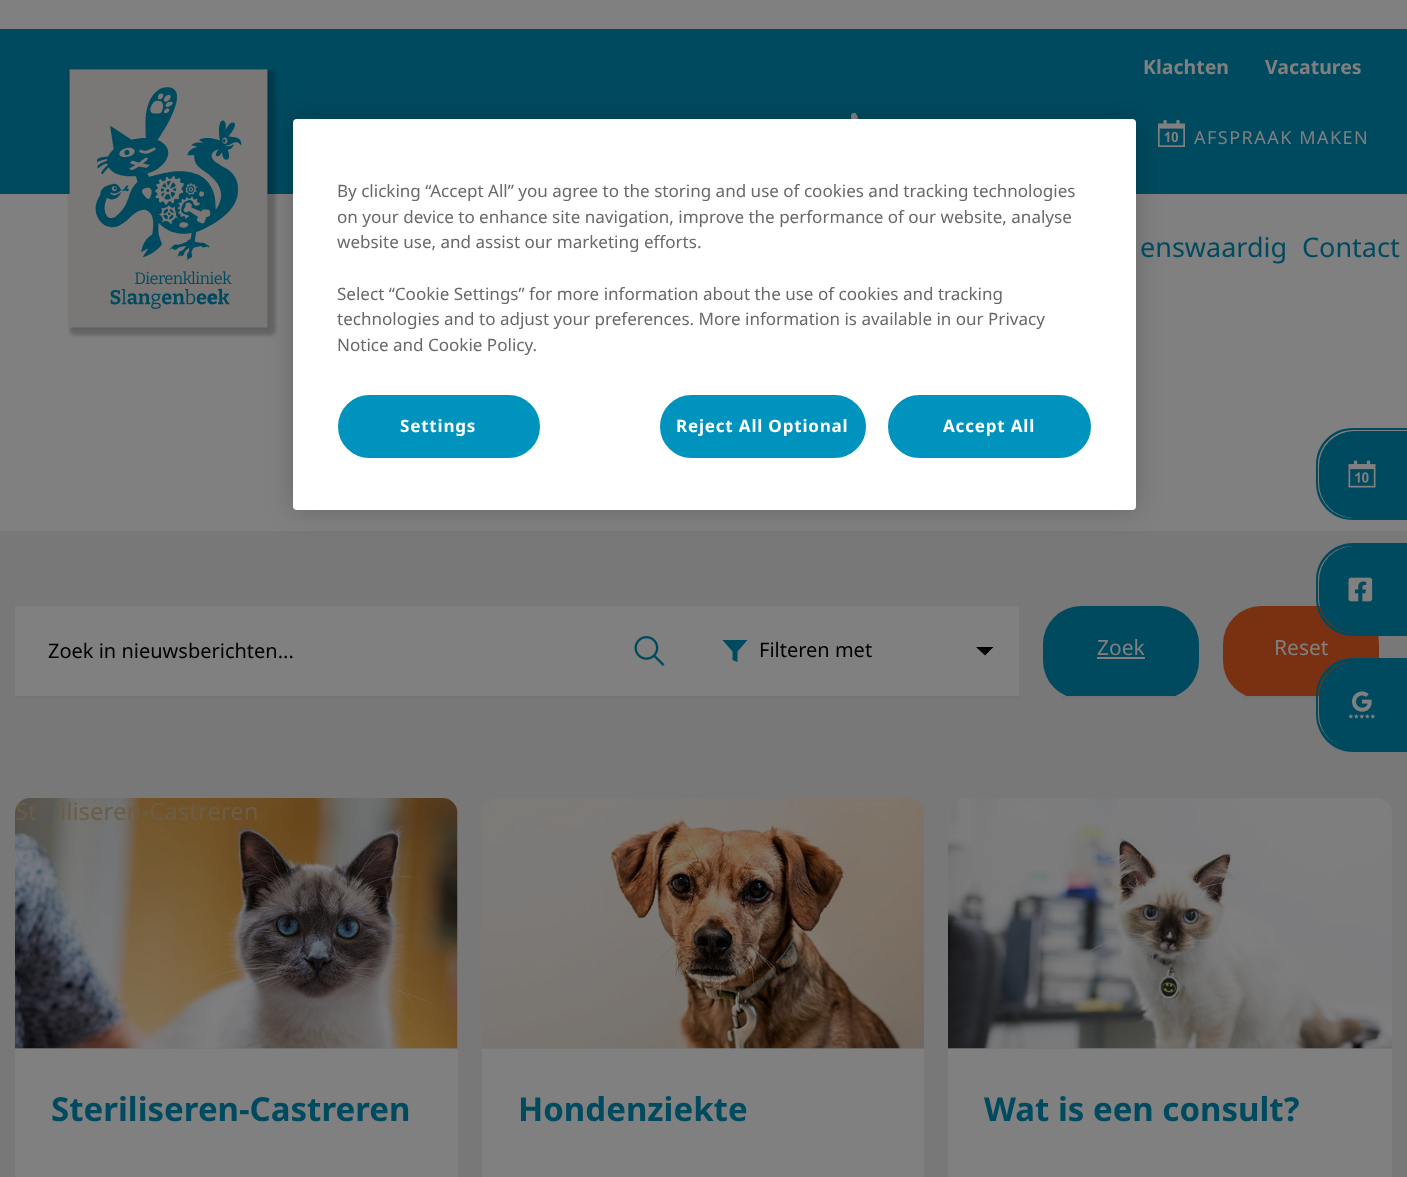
<!DOCTYPE html>
<meta charset="utf-8">
<style>body { margin: 0 } canvas { display: block }</style>
<canvas id="canvas" width="1407" height="1177"></canvas>
<img id="img1" src="img_01.png" hidden>
<img id="img2" src="img_02.png" hidden>
<img id="img3" src="img_03.png" hidden>
<img id="img4" src="img_04.png" hidden>
<img id="img5" src="img_05.png" hidden>
<img id="img6" src="img_06.png" hidden>
<img id="img7" src="img_07.png" hidden>
<img id="img8" src="img_08.png" hidden>
<img id="img9" src="img_09.png" hidden>
<img id="img10" src="img_10.png" hidden>
<script>
window.onload = function () {
	const canvas = document.getElementById("canvas");
	const ctx = canvas.getContext("2d");
	ctx.miterLimit = 4;
	ctx.fontKerning = "normal";
	function txt(s, x, y) {
		ctx.fillText(s, x, y);
	}
	function fill(x, y, w, h) {
		ctx.fillRect(x, y, w, h);
	}
	function round(x, y, w, h, r) {
		ctx.beginPath();
		ctx.roundRect(x, y, w, h, r);
		ctx.fill();
	}
	function img(id, x, y, w, h) {
		ctx.drawImage(document.getElementById(id), x, y, w, h);
	}

	ctx.fillStyle = "#808080";
	fill(0, 0, 1407, 1177);
	ctx.fillStyle = "#004A5F";
	fill(0, 29, 1407, 165);
	img("img1", 67, 68, 211, 270);
	img("img2", 851, 113, 8, 6);
	img("img3", 1158, 120, 27, 27);
	ctx.beginPath();
	ctx.roundRect(1319, 431, 88, 87, [35, 0, 0, 35]);
	ctx.fill();
	ctx.beginPath();
	ctx.moveTo(1353, 428);
	ctx.lineTo(1407, 428);
	ctx.lineTo(1407, 520);
	ctx.lineTo(1353, 520);
	ctx.bezierCurveTo(1332, 520, 1316, 504, 1316, 483);
	ctx.lineTo(1316, 465);
	ctx.bezierCurveTo(1316, 444, 1332, 428, 1353, 428);
	ctx.closePath();
	ctx.moveTo(1353, 430);
	ctx.lineTo(1407, 430);
	ctx.lineTo(1407, 518);
	ctx.lineTo(1353, 518);
	ctx.bezierCurveTo(1334, 518, 1318, 502, 1318, 483);
	ctx.lineTo(1318, 465);
	ctx.bezierCurveTo(1318, 446, 1334, 430, 1353, 430);
	ctx.closePath();
	ctx.fill("evenodd");
	img("img4", 1348, 460, 28, 28);
	ctx.fillStyle = "#787878";
	fill(0, 531, 1407, 646);
	ctx.fillStyle = "#793112";
	round(1223, 606, 156, 93, 38);
	ctx.fillStyle = "#004A5F";
	ctx.beginPath();
	ctx.roundRect(1319, 546, 88, 87, [35, 0, 0, 35]);
	ctx.fill();
	ctx.beginPath();
	ctx.moveTo(1353, 543);
	ctx.lineTo(1407, 543);
	ctx.lineTo(1407, 636);
	ctx.lineTo(1353, 636);
	ctx.bezierCurveTo(1332, 636, 1316, 619, 1316, 598);
	ctx.lineTo(1316, 580);
	ctx.bezierCurveTo(1316, 560, 1332, 543, 1353, 543);
	ctx.closePath();
	ctx.moveTo(1353, 546);
	ctx.lineTo(1407, 546);
	ctx.lineTo(1407, 633);
	ctx.lineTo(1353, 633);
	ctx.bezierCurveTo(1334, 633, 1318, 618, 1318, 598);
	ctx.lineTo(1318, 580);
	ctx.bezierCurveTo(1318, 561, 1334, 546, 1353, 546);
	ctx.closePath();
	ctx.fill("evenodd");
	img("img5", 1348, 577, 25, 25);
	ctx.fillStyle = "#747474";
	fill(1242, 696, 78, 3);
	ctx.fillStyle = "#004A5F";
	ctx.beginPath();
	ctx.roundRect(1319, 662, 88, 87, [35, 0, 0, 35]);
	ctx.fill();
	ctx.beginPath();
	ctx.moveTo(1353, 658);
	ctx.lineTo(1407, 658);
	ctx.lineTo(1407, 752);
	ctx.lineTo(1353, 752);
	ctx.bezierCurveTo(1332, 752, 1316, 735, 1316, 714);
	ctx.lineTo(1316, 696);
	ctx.bezierCurveTo(1316, 675, 1332, 658, 1353, 658);
	ctx.closePath();
	ctx.moveTo(1353, 662);
	ctx.lineTo(1407, 662);
	ctx.lineTo(1407, 748);
	ctx.lineTo(1353, 748);
	ctx.bezierCurveTo(1334, 748, 1318, 733, 1318, 714);
	ctx.lineTo(1318, 696);
	ctx.bezierCurveTo(1318, 677, 1334, 662, 1353, 662);
	ctx.closePath();
	ctx.fill("evenodd");
	img("img6", 1348, 691, 27, 28);
	ctx.fillStyle = "#808080";
	fill(15, 606, 1004, 90);
	ctx.fillStyle = "#747474";
	fill(15, 696, 1004, 3);
	img("img7", 634, 636, 31, 30);
	ctx.fillStyle = "#004A5F";
	ctx.beginPath();
	ctx.moveTo(747.5, 640);
	ctx.lineTo(722.5, 640);
	ctx.lineTo(732.5, 651.5);
	ctx.lineTo(732.5, 660);
	ctx.lineTo(737.5, 662);
	ctx.lineTo(737.5, 651.5);
	ctx.closePath();
	ctx.fill();
	ctx.fillStyle = "#000000";
	ctx.beginPath();
	ctx.moveTo(976, 647);
	ctx.lineTo(985, 655.5);
	ctx.lineTo(993.5, 647);
	ctx.closePath();
	ctx.fill();
	ctx.fillStyle = "#004A5F";
	round(1043, 606, 156, 93, 38);
	ctx.fillStyle = "#747474";
	fill(1062, 696, 119, 3);
	ctx.fillStyle = "#808080";
	fill(1097, 657, 48, 2);
	img("img8", 15, 798, 443, 251);
	fill(15, 1049, 443, 128);
	img("img9", 481, 798, 443, 251);
	fill(482, 1049, 442, 128);
	img("img10", 948, 798, 444, 251);
	fill(948, 1049, 444, 128);
	ctx.fillStyle = "rgba(0, 0, 0, 0.2)";
	ctx.filter = "blur(13.5px)";
	ctx.beginPath();
	ctx.roundRect(293, 119, 843, 391, 4);
	ctx.fill();
	ctx.filter = "none";
	ctx.fillStyle = "#FFFFFF";
	round(293, 119, 843, 391, 4);
	ctx.fillStyle = "#0093BE";
	ctx.beginPath();
	ctx.roundRect(339, 396, 200, 61, 30.5);
	ctx.fill();
	ctx.strokeStyle = "#0093BE";
	ctx.lineWidth = 2;
	ctx.stroke();
	ctx.beginPath();
	ctx.roundRect(661, 396, 204, 61, 30.5);
	ctx.fill();
	ctx.stroke();
	ctx.beginPath();
	ctx.roundRect(889, 396, 201, 61, 30.5);
	ctx.fill();
	ctx.stroke();
	ctx.font = "bold 19.5px Noto Sans";
	ctx.fillStyle = "#808080";
	txt("Klachten", 1143, 74);
	txt("Vacatures", 1265, 74);
	ctx.letterSpacing = "1.5px";
	ctx.font = "18px Noto Sans";
	txt("AFSPRAAK MAKEN", 1194, 144);
	ctx.letterSpacing = "0px";
	ctx.font = "27px Noto Sans";
	ctx.fillStyle = "#004A5F";
	txt("enswaardig", 1140, 257);
	txt("Contact", 1302, 257);
	ctx.font = "20px Noto Sans";
	ctx.fillStyle = "#000000";
	txt("Zoek in nieuwsberichten...", 48, 658);
	txt("Filteren met", 759, 657);
	ctx.font = "21px Noto Sans";
	ctx.fillStyle = "#808080";
	txt("Zoek", 1097, 655);
	txt("Reset", 1274, 655);
	ctx.font = "24px Noto Sans";
	ctx.fillStyle = "#6C5D46";
	txt("St", 15, 820);
	txt("iliseren-Castreren", 60, 820);
	ctx.font = "bold 33px Noto Sans";
	ctx.fillStyle = "#004A5F";
	txt("Steriliseren-Castreren", 51, 1121);
	txt("Hondenziekte", 518, 1121);
	txt("Wat is een consult?", 984, 1121);
	ctx.font = "17.05px Noto Sans";
	ctx.fillStyle = "#696969";
	txt("By clicking “Accept All” you agree to the storing and use of cookies and tracking technologies", 337, 197);
	txt("on your device to enhance site navigation, improve the performance of our website, analyse", 337, 223);
	txt("website use, and assist our marketing efforts.", 337, 248);
	txt("Select “Cookie Settings” for more information about the use of cookies and tracking", 337, 300);
	txt("technologies and to adjust your preferences. More information is available in our Privacy", 337, 325);
	txt("Notice and Cookie Policy.", 337, 351);
	ctx.letterSpacing = "0.8px";
	ctx.font = "bold 17.05px Noto Sans";
	ctx.fillStyle = "#FFFFFF";
	txt("Settings", 400, 432);
	txt("Reject All Optional", 676, 432);
	txt("Accept All", 943, 432);
};
</script>
